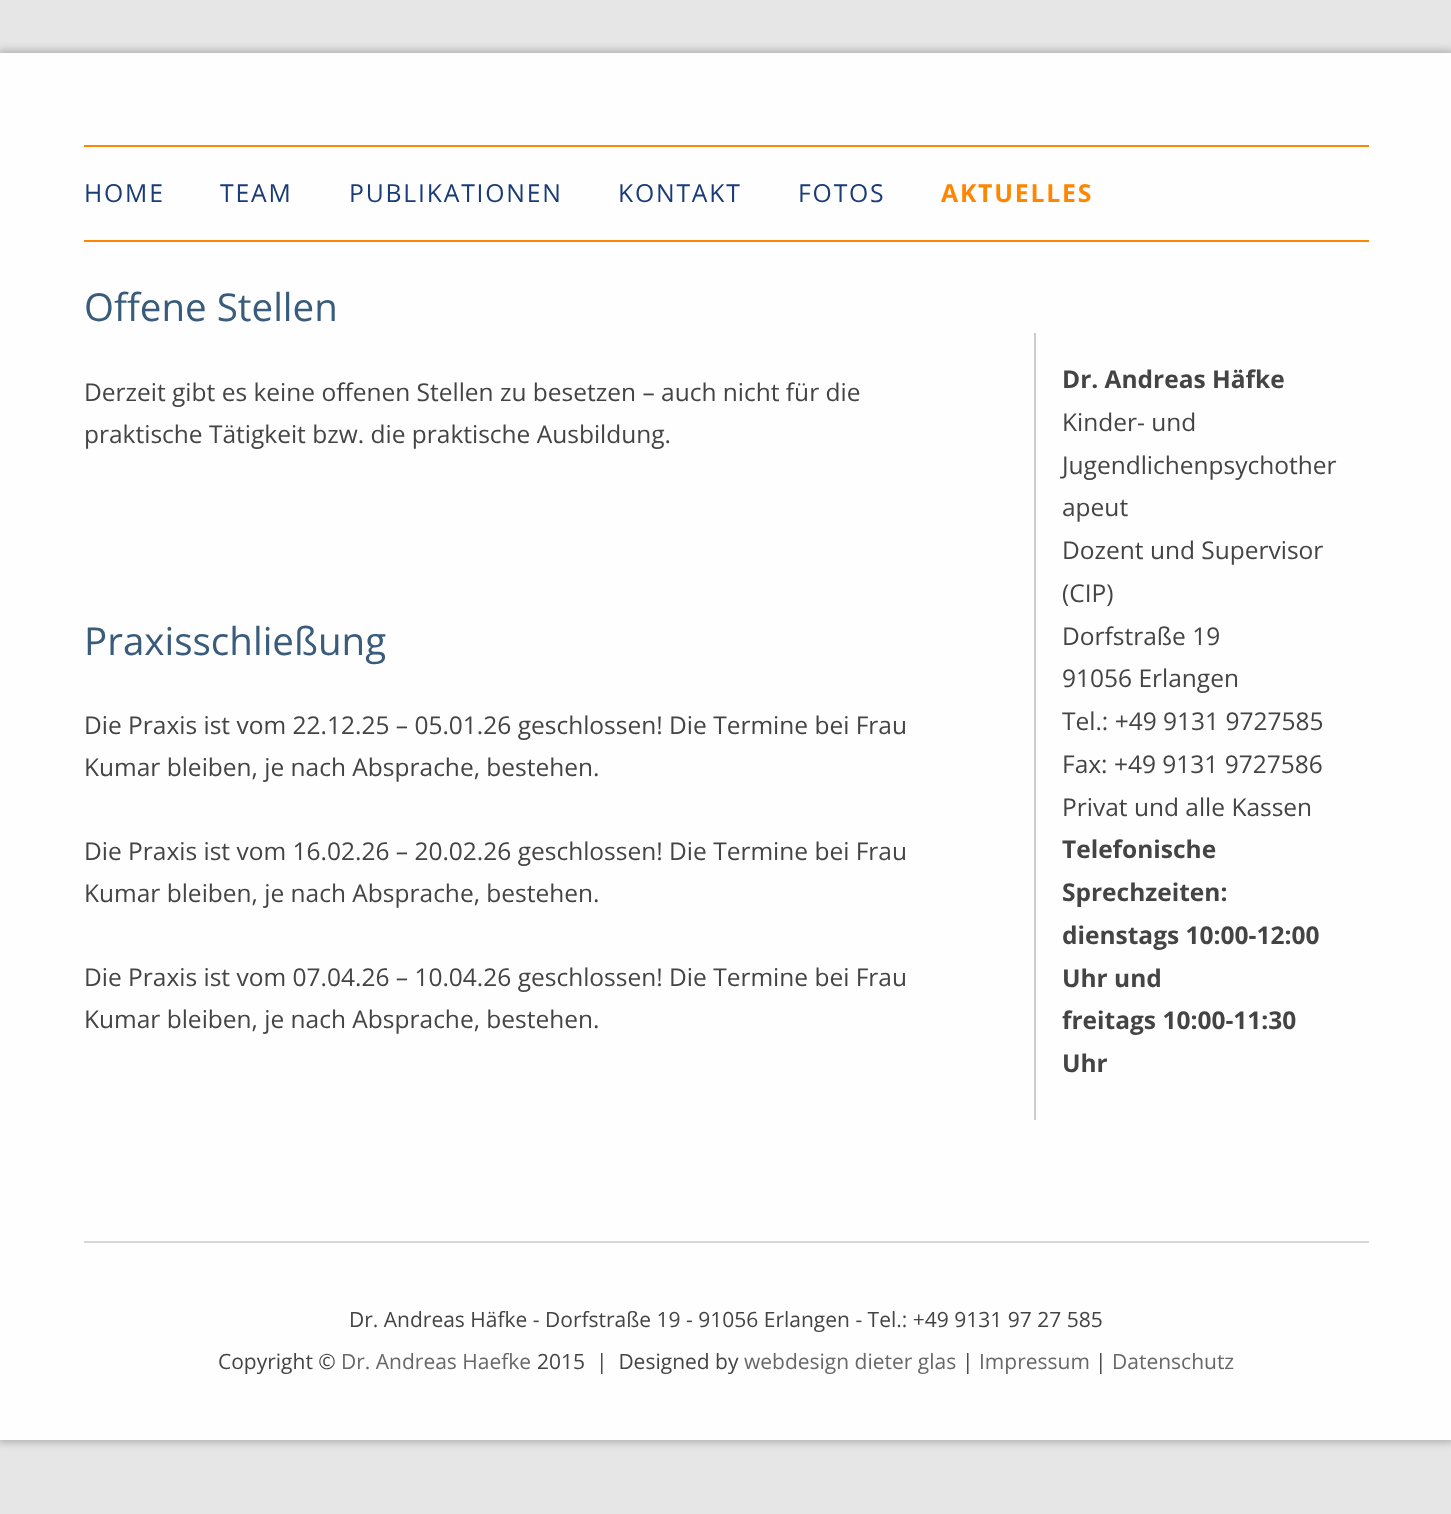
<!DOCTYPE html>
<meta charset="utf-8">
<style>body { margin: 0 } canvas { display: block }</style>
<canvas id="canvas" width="1451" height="1514"></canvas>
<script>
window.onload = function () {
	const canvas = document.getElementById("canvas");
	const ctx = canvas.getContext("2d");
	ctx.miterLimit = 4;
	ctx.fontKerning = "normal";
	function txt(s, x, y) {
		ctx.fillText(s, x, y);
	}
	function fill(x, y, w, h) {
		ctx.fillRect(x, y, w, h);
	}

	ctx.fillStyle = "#E6E6E6";
	fill(0, 0, 1451, 1514);
	ctx.fillStyle = "#AAAAAA";
	ctx.filter = "blur(4.5px)";
	ctx.beginPath();
	ctx.rect(-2, 51, 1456, 1391);
	ctx.fill();
	ctx.filter = "none";
	ctx.fillStyle = "#FEFEFE";
	fill(0, 53, 1451, 1387);
	ctx.fillStyle = "#FF8601";
	fill(84, 145, 1285, 2);
	fill(84, 240, 1285, 2);
	ctx.fillStyle = "#CCCCCC";
	fill(1034, 333, 2, 787);
	ctx.fillStyle = "#D8D6D6";
	fill(84, 1241, 1285, 2);
	ctx.letterSpacing = "1.8px";
	ctx.font = "24.75px Open Sans";
	ctx.fillStyle = "#193C76";
	txt("HOME", 84, 202);
	txt("TEAM", 220, 202);
	txt("PUBLIKATIONEN", 349, 202);
	txt("KONTAKT", 618, 202);
	txt("FOTOS", 798, 202);
	ctx.font = "bold 24.75px Open Sans";
	ctx.fillStyle = "#FF8601";
	txt("AKTUELLES", 941, 202);
	ctx.letterSpacing = "0px";
	ctx.font = "38.5px Open Sans";
	ctx.fillStyle = "#395C7C";
	txt("Offene Stellen", 84, 321);
	ctx.font = "24.5px Open Sans";
	ctx.fillStyle = "#444444";
	txt("Derzeit gibt es keine offenen Stellen zu besetzen – auch nicht für die", 84, 401);
	txt("praktische Tätigkeit bzw. die praktische Ausbildung.", 84, 443);
	ctx.font = "38.5px Open Sans";
	ctx.fillStyle = "#395C7C";
	txt("Praxisschließung", 84, 655);
	ctx.font = "24.5px Open Sans";
	ctx.fillStyle = "#444444";
	txt("Die Praxis ist vom 22.12.25 – 05.01.26 geschlossen! Die Termine bei Frau", 84, 734);
	txt("Kumar bleiben, je nach Absprache, bestehen.", 84, 776);
	txt("Die Praxis ist vom 16.02.26 – 20.02.26 geschlossen! Die Termine bei Frau", 84, 860);
	txt("Kumar bleiben, je nach Absprache, bestehen.", 84, 902);
	txt("Die Praxis ist vom 07.04.26 – 10.04.26 geschlossen! Die Termine bei Frau", 84, 986);
	txt("Kumar bleiben, je nach Absprache, bestehen.", 84, 1028);
	ctx.font = "bold 24.5px Open Sans";
	txt("Dr. Andreas Häfke", 1062, 388);
	ctx.font = "24.5px Open Sans";
	txt("Kinder- und", 1062, 431);
	txt("Jugendlichenpsychother", 1062, 474);
	txt("apeut", 1062, 516);
	txt("Dozent und Supervisor", 1062, 559);
	txt("(CIP)", 1062, 602);
	txt("Dorfstraße 19", 1062, 645);
	txt("91056 Erlangen", 1062, 687);
	txt("Tel.: +49 9131 9727585", 1062, 730);
	txt("Fax: +49 9131 9727586", 1062, 773);
	txt("Privat und alle Kassen", 1062, 816);
	ctx.font = "bold 24.5px Open Sans";
	txt("Telefonische", 1062, 858);
	txt("Sprechzeiten:", 1062, 901);
	txt("dienstags 10:00-12:00", 1062, 944);
	txt("Uhr und", 1062, 987);
	txt("freitags 10:00-11:30", 1062, 1029);
	txt("Uhr", 1062, 1072);
	ctx.font = "21px Open Sans";
	txt("Dr. Andreas Häfke - Dorfstraße 19 - 91056 Erlangen - Tel.: +49 9131 97 27 585", 349, 1327);
	txt("Copyright ©", 218, 1369);
	ctx.fillStyle = "#686868";
	txt("Dr. Andreas Haefke", 341, 1369);
	ctx.fillStyle = "#444444";
	txt("2015  |  Designed by", 537, 1369);
	ctx.fillStyle = "#686868";
	txt("webdesign dieter glas", 744, 1369);
	ctx.fillStyle = "#444444";
	txt("|", 962, 1369);
	ctx.fillStyle = "#686868";
	txt("Impressum", 979, 1369);
	ctx.fillStyle = "#444444";
	txt("|", 1095, 1369);
	ctx.fillStyle = "#686868";
	txt("Datenschutz", 1112, 1369);
};
</script>
